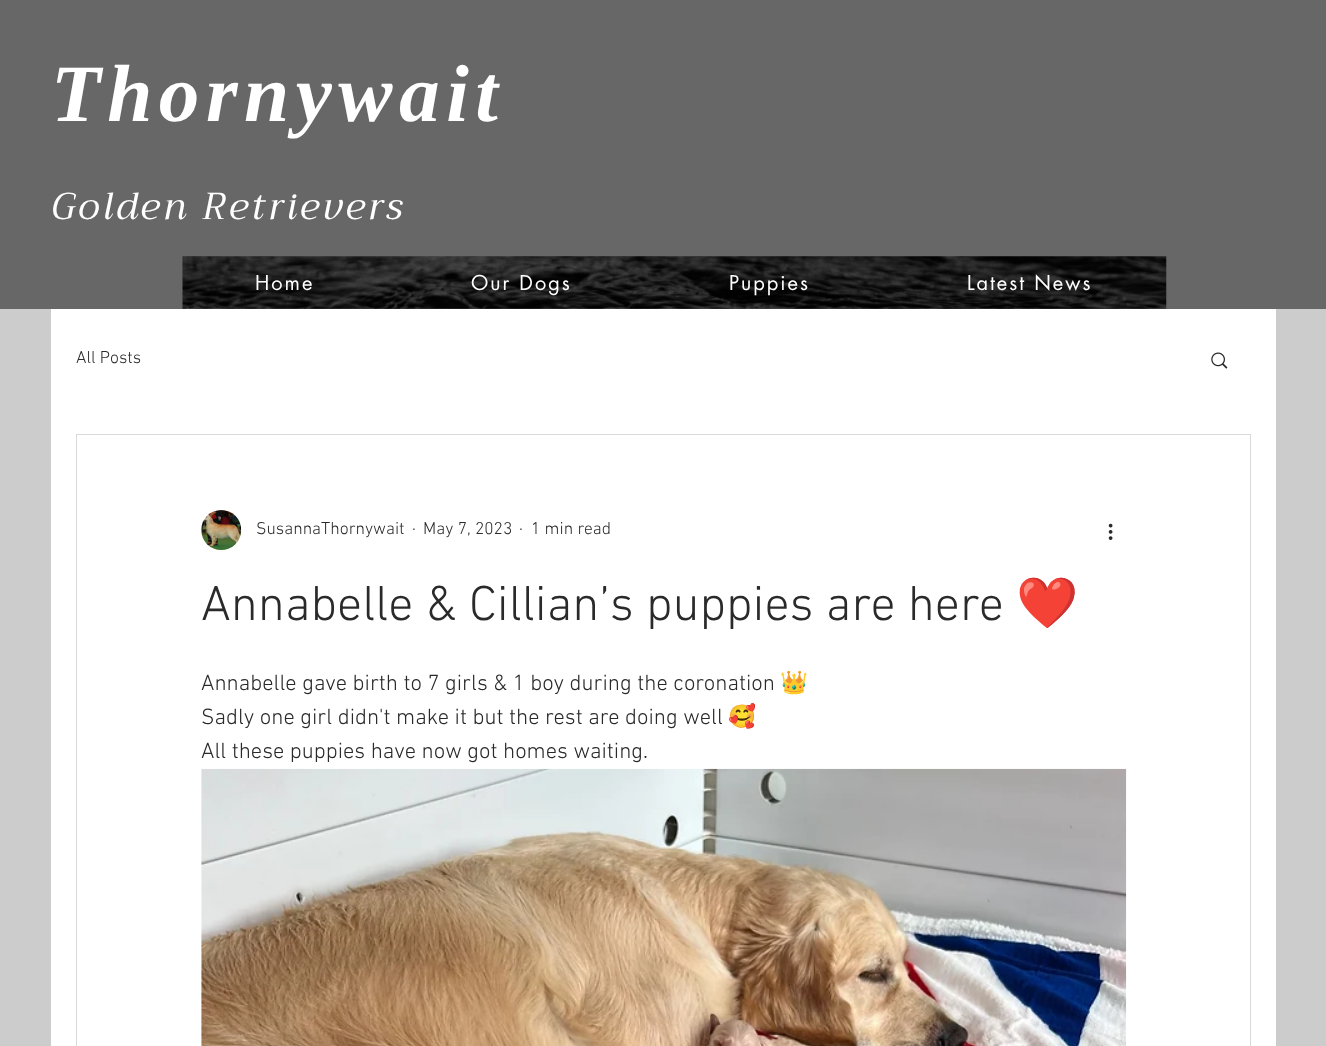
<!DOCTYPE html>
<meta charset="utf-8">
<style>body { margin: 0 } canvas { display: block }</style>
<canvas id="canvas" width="1326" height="1046"></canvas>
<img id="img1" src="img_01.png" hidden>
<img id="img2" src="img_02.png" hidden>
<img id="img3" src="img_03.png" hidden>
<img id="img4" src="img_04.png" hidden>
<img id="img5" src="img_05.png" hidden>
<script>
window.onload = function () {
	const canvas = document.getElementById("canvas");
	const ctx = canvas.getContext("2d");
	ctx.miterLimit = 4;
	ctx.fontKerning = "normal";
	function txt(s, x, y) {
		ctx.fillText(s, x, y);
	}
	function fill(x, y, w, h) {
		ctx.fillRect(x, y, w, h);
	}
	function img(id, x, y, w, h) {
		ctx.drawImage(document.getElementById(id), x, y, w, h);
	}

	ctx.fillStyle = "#CCCCCC";
	fill(0, 0, 1326, 1046);
	ctx.fillStyle = "#676767";
	fill(0, 0, 1326, 309);
	img("img1", 182, 256, 985, 53);
	ctx.fillStyle = "#FFFFFF";
	fill(51, 309, 1225, 737);
	img("img2", 1211, 352, 17, 17);
	ctx.strokeStyle = "#D9D9D9";
	ctx.strokeRect(76.5, 434.5, 1174, 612);
	img("img3", 201, 510, 41, 40);
	img("img4", 1108, 523, 5, 17);
	img("img5", 201, 768, 926, 278);
	ctx.letterSpacing = "6.5px";
	ctx.font = "italic bold 81.25px Liberation Serif";
	txt("Thornywait", 51, 121);
	ctx.letterSpacing = "3px";
	ctx.font = "italic 37.5px Trirong";
	txt("Golden Retrievers", 51, 219);
	ctx.letterSpacing = "2px";
	ctx.font = "20px futura";
	txt("Home", 255, 290);
	txt("Our Dogs", 471, 290);
	txt("Puppies", 729, 290);
	txt("Latest News", 967, 290);
	ctx.letterSpacing = "0px";
	ctx.font = "300 17.5px 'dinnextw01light'";
	ctx.fillStyle = "#2A2A2A";
	txt("All Posts", 76, 363);
	txt("SusannaThornywait", 256, 534);
	txt("·", 412, 534);
	txt("May 7, 2023", 423, 534);
	txt("·", 519, 534);
	txt("1 min read", 531, 534);
	ctx.font = "300 50px 'dinnextw01light'";
	txt("Annabelle & Cillian’s puppies are here", 201, 620);
	ctx.font = "50px Noto Color Emoji";
	txt("❤️", 1016, 620);
	ctx.font = "300 22.5px 'dinnextw01light'";
	txt("Annabelle gave birth to 7 girls & 1 boy during the coronation", 201, 690);
	ctx.font = "22.5px Noto Color Emoji";
	txt("👑", 780, 690);
	ctx.font = "300 22.5px 'dinnextw01light'";
	txt("Sadly one girl didn't make it but the rest are doing well", 201, 724);
	ctx.font = "22.5px Noto Color Emoji";
	txt("🥰", 728, 724);
	ctx.font = "300 22.5px 'dinnextw01light'";
	txt("All these puppies have now got homes waiting.", 201, 758);
};
</script>
